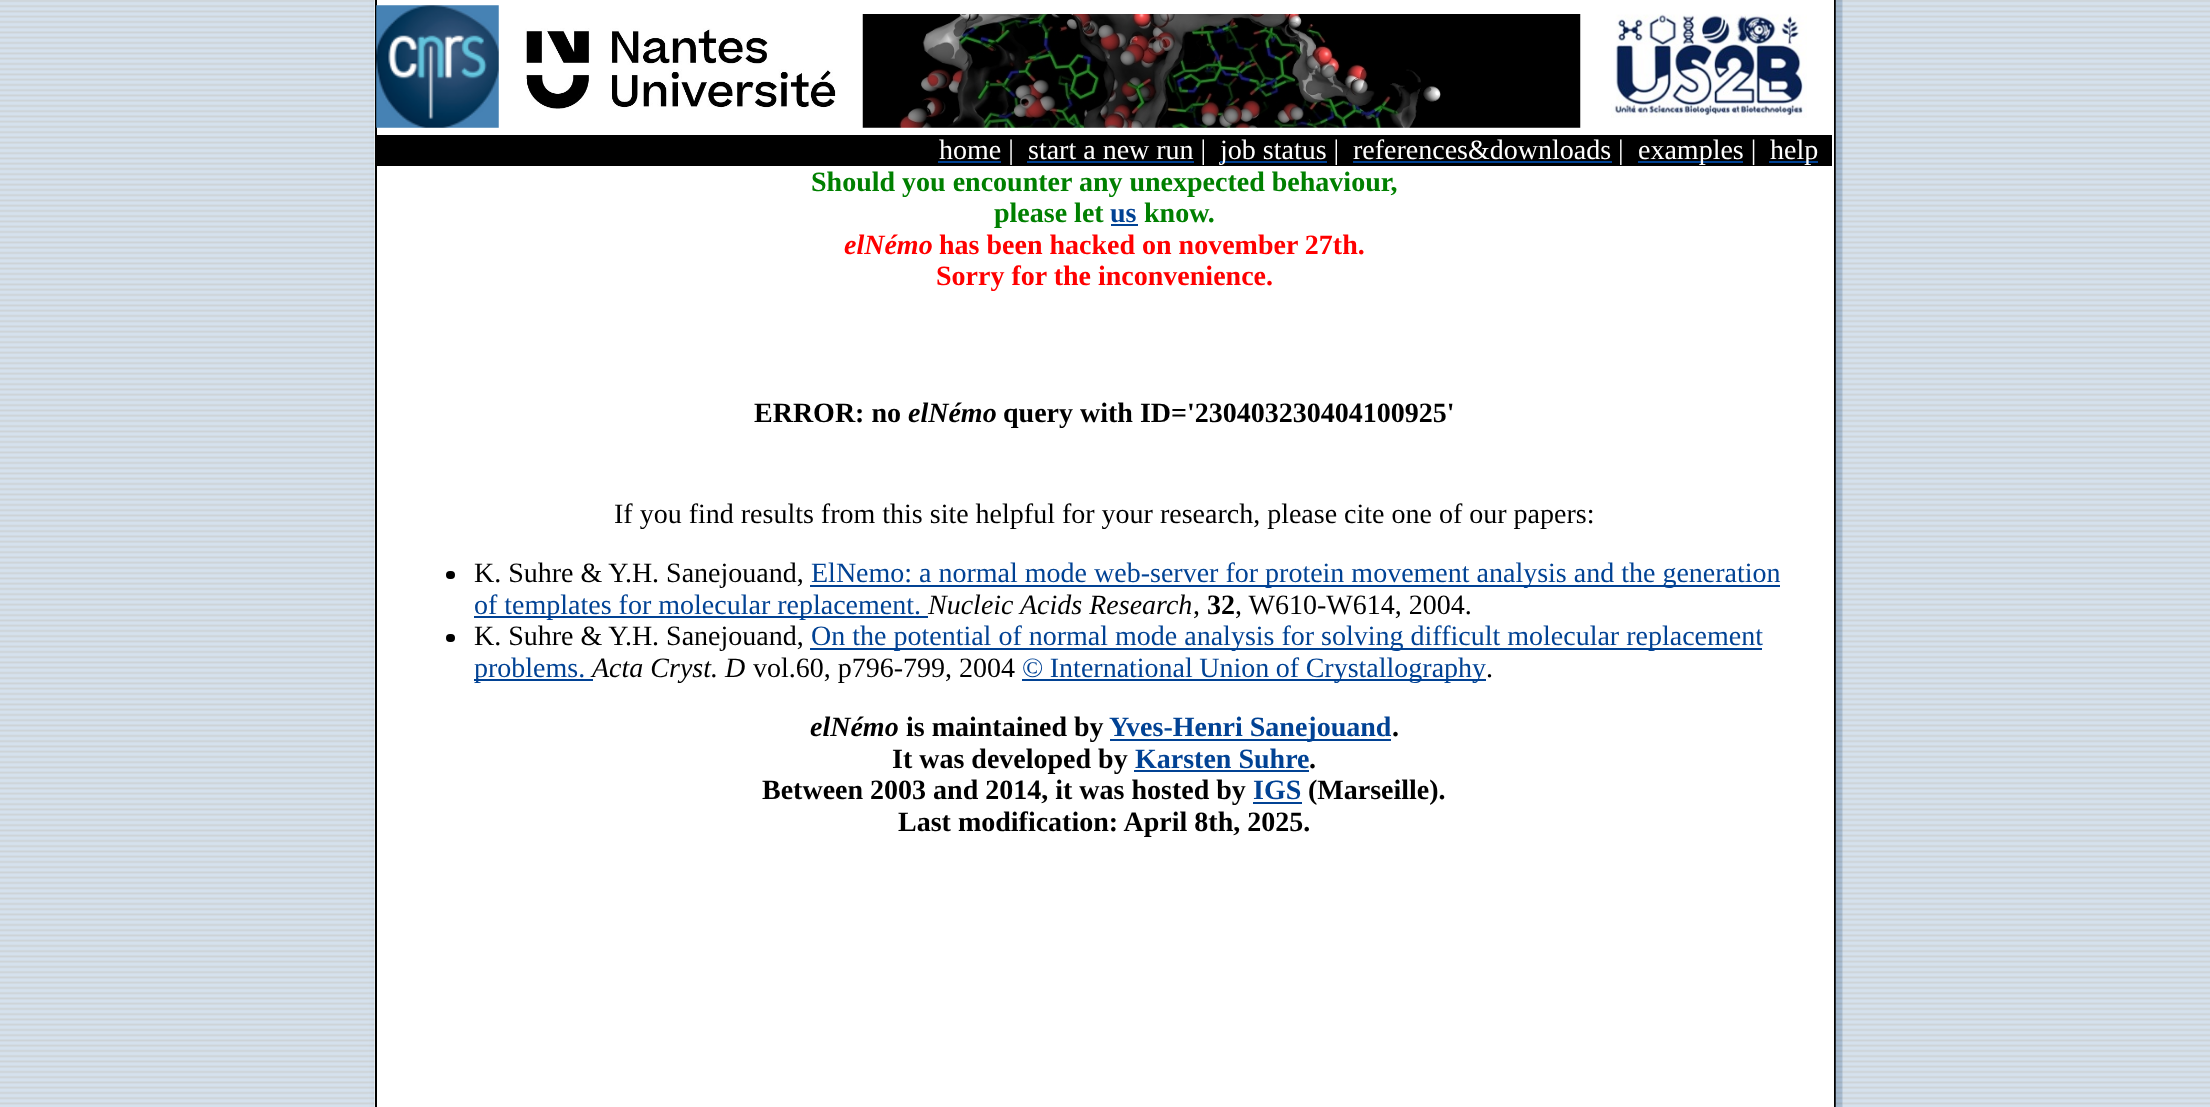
<!DOCTYPE html>
<meta charset="utf-8">
<style>body { margin: 0 } canvas { display: block }</style>
<canvas id="canvas" width="2210" height="1107"></canvas>
<img id="img1" src="img_01.png" hidden>
<img id="img2" src="img_02.png" hidden>
<img id="img3" src="img_03.png" hidden>
<img id="img4" src="img_04.png" hidden>
<img id="img5" src="img_05.png" hidden>
<img id="img6" src="img_06.png" hidden>
<img id="img7" src="img_07.png" hidden>
<script>
window.onload = function () {
	const canvas = document.getElementById("canvas");
	const ctx = canvas.getContext("2d");
	ctx.miterLimit = 4;
	ctx.fontKerning = "normal";
	function txt(s, x, y) {
		ctx.fillText(s, x, y);
	}
	function fill(x, y, w, h) {
		ctx.fillRect(x, y, w, h);
	}
	function round(x, y, w, h, r) {
		ctx.beginPath();
		ctx.roundRect(x, y, w, h, r);
		ctx.fill();
	}
	function img(id, x, y, w, h) {
		ctx.drawImage(document.getElementById(id), x, y, w, h);
	}

	ctx.fillStyle = "#FFFFFF";
	fill(0, 0, 2210, 1107);
	img("img1", 0, 0, 2210, 1107);
	fill(374, 0, 1469, 1107);
	img("img2", 368, 0, 7, 1107);
	ctx.fillStyle = "#000000";
	fill(375, 0, 2, 1107);
	fill(1834, 0, 2, 1107);
	img("img3", 376, 5, 123, 123);
	img("img4", 525, 28, 311, 81);
	img("img5", 862, 14, 719, 114);
	img("img6", 1611, 14, 196, 104);
	fill(377, 135, 1455, 31);
	ctx.fillStyle = "#014294";
	fill(938, 161, 63, 2);
	fill(1027, 161, 167, 2);
	fill(1220, 161, 107, 2);
	fill(1353, 161, 259, 2);
	fill(1638, 161, 105, 2);
	fill(1769, 161, 49, 2);
	fill(1111, 224, 27, 2);
	ctx.fillStyle = "#000000";
	round(446, 571, 9, 8, 4);
	ctx.fillStyle = "#014294";
	fill(810, 585, 970, 2);
	fill(474, 616, 454, 2);
	ctx.fillStyle = "#000000";
	round(446, 634, 9, 8, 4);
	ctx.fillStyle = "#014294";
	fill(810, 648, 952, 2);
	fill(474, 679, 119, 2);
	fill(1022, 679, 464, 2);
	fill(1110, 739, 281, 2);
	fill(1134, 770, 175, 2);
	fill(1253, 802, 49, 2);
	img("img7", 1835, 0, 8, 1107);
	ctx.font = "28px Liberation Serif";
	ctx.fillStyle = "#FFFFFF";
	txt("home |", 939, 159);
	txt("start a new run |", 1028, 159);
	txt("job status |", 1220, 159);
	txt("references&downloads |", 1353, 159);
	txt("examples |", 1638, 159);
	txt("help", 1770, 159);
	ctx.font = "bold 28px Liberation Serif";
	ctx.fillStyle = "#008000";
	txt("Should you encounter any unexpected behaviour,", 811, 191);
	txt("please let", 994, 222);
	ctx.fillStyle = "#014294";
	txt("us", 1110, 222);
	ctx.fillStyle = "#008000";
	txt("know.", 1144, 222);
	ctx.font = "italic bold 28px Liberation Serif";
	ctx.fillStyle = "#FF0000";
	txt("elNémo", 844, 254);
	ctx.font = "bold 28px Liberation Serif";
	txt("has been hacked on november 27th.", 939, 254);
	txt("Sorry for the inconvenience.", 936, 285);
	ctx.fillStyle = "#000000";
	txt("ERROR: no", 754, 422);
	ctx.font = "italic bold 28px Liberation Serif";
	txt("elNémo", 908, 422);
	ctx.font = "bold 28px Liberation Serif";
	txt("query with ID='230403230404100925'", 1003, 422);
	ctx.font = "28px Liberation Serif";
	txt("If you find results from this site helpful for your research, please cite one of our papers:", 614, 523);
	txt("K. Suhre & Y.H. Sanejouand,", 474, 582);
	ctx.fillStyle = "#014294";
	txt("ElNemo: a normal mode web-server for protein movement analysis and the generation", 811, 582);
	txt("of templates for molecular replacement.", 474, 614);
	ctx.font = "italic 28px Liberation Serif";
	ctx.fillStyle = "#000000";
	txt("Nucleic Acids Research", 928, 614);
	ctx.font = "28px Liberation Serif";
	txt(",", 1193, 614);
	ctx.font = "bold 28px Liberation Serif";
	txt("32", 1207, 614);
	ctx.font = "28px Liberation Serif";
	txt(", W610-W614, 2004.", 1235, 614);
	txt("K. Suhre & Y.H. Sanejouand,", 474, 645);
	ctx.fillStyle = "#014294";
	txt("On the potential of normal mode analysis for solving difficult molecular replacement", 811, 645);
	txt("problems.", 474, 677);
	ctx.font = "italic 28px Liberation Serif";
	ctx.fillStyle = "#000000";
	txt("Acta Cryst. D", 592, 677);
	ctx.font = "28px Liberation Serif";
	txt("vol.60, p796-799, 2004", 753, 677);
	ctx.wordSpacing = "-0.5px";
	ctx.fillStyle = "#014294";
	txt("© International Union of Crystallography", 1022, 677);
	ctx.wordSpacing = "0px";
	ctx.fillStyle = "#000000";
	txt(".", 1486, 677);
	ctx.font = "italic bold 28px Liberation Serif";
	txt("elNémo", 810, 736);
	ctx.font = "bold 28px Liberation Serif";
	txt("is maintained by", 906, 736);
	ctx.fillStyle = "#014294";
	txt("Yves-Henri Sanejouand", 1109, 736);
	ctx.fillStyle = "#000000";
	txt(".", 1392, 736);
	txt("It was developed by", 892, 768);
	ctx.fillStyle = "#014294";
	txt("Karsten Suhre", 1135, 768);
	ctx.fillStyle = "#000000";
	txt(".", 1309, 768);
	txt("Between 2003 and 2014, it was hosted by", 762, 799);
	ctx.fillStyle = "#014294";
	txt("IGS", 1253, 799);
	ctx.fillStyle = "#000000";
	txt("(Marseille).", 1308, 799);
	txt("Last modification: April 8th, 2025.", 898, 831);
};
</script>
